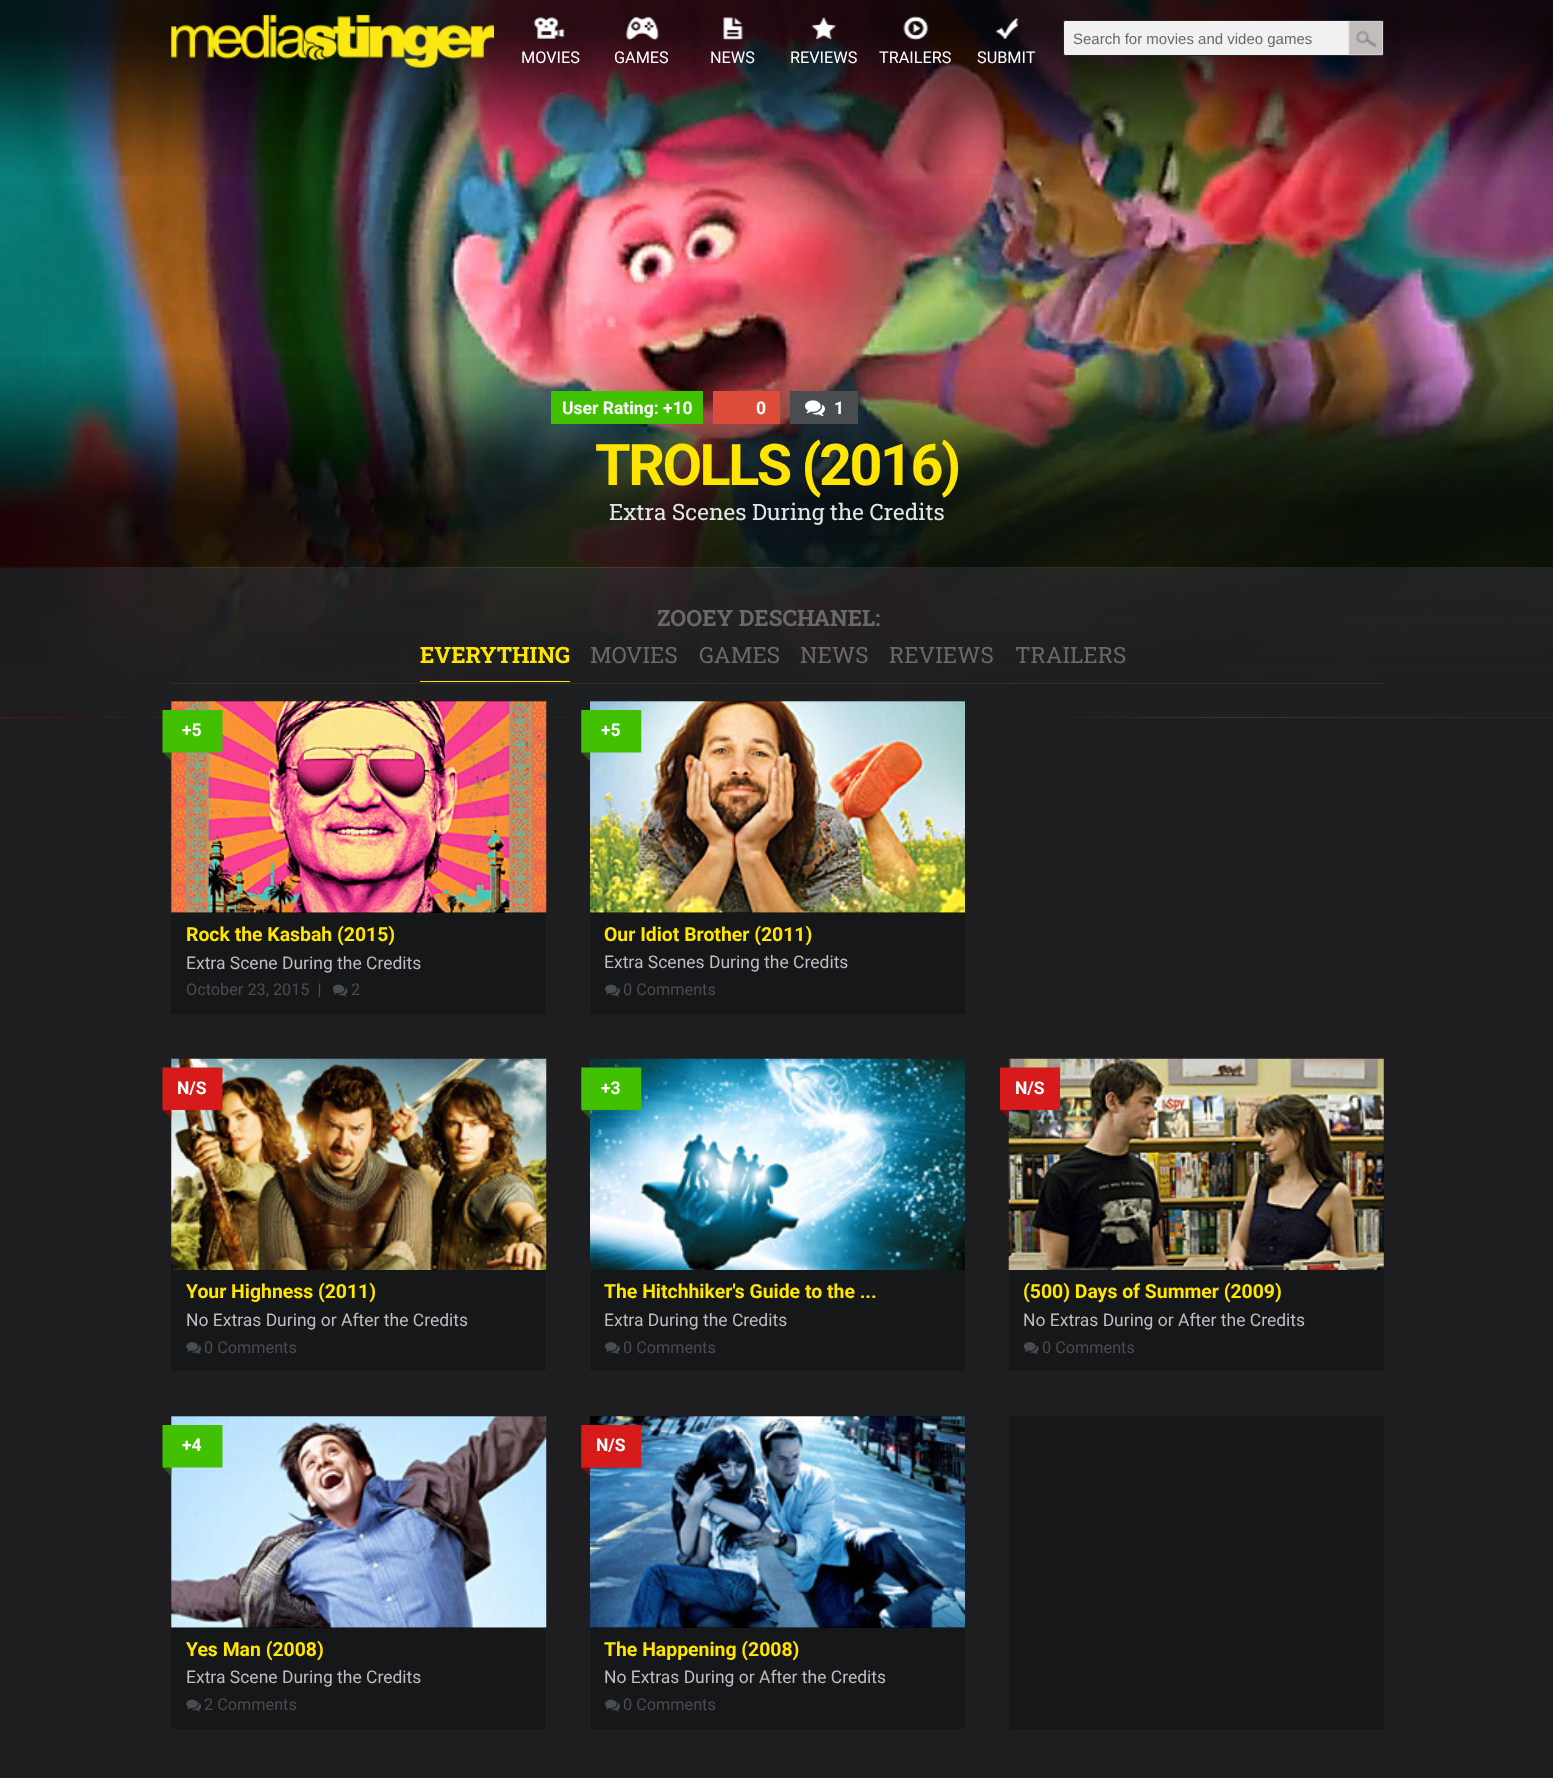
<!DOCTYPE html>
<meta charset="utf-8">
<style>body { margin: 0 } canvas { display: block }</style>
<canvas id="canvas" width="1553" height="1778"></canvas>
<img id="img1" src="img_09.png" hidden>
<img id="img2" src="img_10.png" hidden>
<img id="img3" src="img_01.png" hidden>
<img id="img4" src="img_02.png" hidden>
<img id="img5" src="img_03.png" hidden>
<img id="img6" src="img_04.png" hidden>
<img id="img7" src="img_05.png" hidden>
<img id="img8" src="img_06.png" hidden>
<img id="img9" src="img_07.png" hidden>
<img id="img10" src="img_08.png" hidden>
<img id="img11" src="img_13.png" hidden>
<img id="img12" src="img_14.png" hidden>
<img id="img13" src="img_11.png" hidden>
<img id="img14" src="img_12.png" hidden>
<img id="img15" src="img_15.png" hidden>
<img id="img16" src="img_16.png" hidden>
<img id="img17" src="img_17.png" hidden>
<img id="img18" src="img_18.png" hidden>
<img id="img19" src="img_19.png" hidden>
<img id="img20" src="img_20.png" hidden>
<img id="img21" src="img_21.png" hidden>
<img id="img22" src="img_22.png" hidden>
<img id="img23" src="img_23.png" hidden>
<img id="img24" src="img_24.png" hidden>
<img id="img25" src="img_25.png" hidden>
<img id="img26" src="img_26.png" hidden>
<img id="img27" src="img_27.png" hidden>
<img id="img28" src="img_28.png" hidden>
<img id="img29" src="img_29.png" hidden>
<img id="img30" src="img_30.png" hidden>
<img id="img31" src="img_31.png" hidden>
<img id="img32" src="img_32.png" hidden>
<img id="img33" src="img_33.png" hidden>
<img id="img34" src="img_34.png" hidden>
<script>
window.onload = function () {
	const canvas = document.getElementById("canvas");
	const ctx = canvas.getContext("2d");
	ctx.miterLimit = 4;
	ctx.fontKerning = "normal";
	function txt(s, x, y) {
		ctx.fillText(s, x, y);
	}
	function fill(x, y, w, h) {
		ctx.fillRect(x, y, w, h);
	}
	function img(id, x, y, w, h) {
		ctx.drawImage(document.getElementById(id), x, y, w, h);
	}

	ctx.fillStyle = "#1E1E20";
	fill(0, 0, 1553, 1778);
	ctx.fillStyle = "#000000";
	fill(0, 717, 1553, 1);
	img("img1", 0, 0, 1553, 718);
	img("img2", 0, 0, 1553, 176);
	img("img3", 171, 14, 323, 54);
	ctx.fillStyle = "#F1F1F1";
	ctx.beginPath();
	ctx.roundRect(1063.5, 20.5, 320, 35, 2);
	ctx.fill();
	ctx.strokeStyle = "#222222";
	ctx.stroke();
	img("img4", 1348, 21, 35, 35);
	img("img5", 533, 17, 32, 23);
	img("img6", 625, 16, 35, 25);
	img("img7", 723, 17, 21, 24);
	img("img8", 811, 17, 26, 23);
	img("img9", 903, 16, 26, 25);
	img("img10", 995, 17, 24, 22);
	img("img11", 0, 567, 124, 151);
	img("img12", 0, 567, 1553, 151);
	img("img13", 0, 357, 1553, 211);
	ctx.fillStyle = "#41C102";
	fill(551, 391, 152, 33);
	ctx.fillStyle = "#DD4B39";
	fill(713, 391, 67, 33);
	ctx.fillStyle = "#494D50";
	fill(790, 391, 68, 33);
	img("img14", 805, 400, 20, 16);
	ctx.fillStyle = "#2E2F31";
	fill(171, 683, 1213, 1);
	ctx.fillStyle = "#FFE500";
	fill(420, 681, 150, 1);
	ctx.fillStyle = "#161718";
	fill(171, 913, 375, 101);
	ctx.fillStyle = "#000000";
	fill(171, 701, 375, 212);
	img("img15", 171, 701, 376, 212);
	img("img16", 162, 710, 61, 52);
	img("img17", 333, 984, 15, 13);
	ctx.fillStyle = "#161718";
	fill(590, 913, 375, 101);
	ctx.fillStyle = "#000000";
	fill(590, 701, 375, 212);
	img("img18", 590, 701, 375, 212);
	img("img19", 581, 710, 61, 52);
	img("img20", 605, 984, 15, 13);
	ctx.fillStyle = "#161718";
	fill(171, 1059, 375, 312);
	img("img21", 171, 1058, 376, 212);
	img("img22", 162, 1067, 61, 52);
	img("img23", 186, 1342, 15, 12);
	fill(590, 1270, 375, 101);
	img("img24", 590, 1058, 375, 212);
	img("img25", 581, 1067, 61, 52);
	img("img26", 605, 1342, 15, 12);
	fill(1009, 1059, 375, 312);
	img("img27", 1008, 1058, 376, 212);
	img("img28", 1000, 1067, 60, 52);
	img("img29", 1024, 1342, 15, 12);
	fill(171, 1628, 375, 101);
	ctx.fillStyle = "#000000";
	fill(171, 1416, 375, 212);
	img("img30", 171, 1416, 376, 212);
	img("img31", 162, 1425, 61, 52);
	img("img32", 186, 1699, 15, 13);
	ctx.fillStyle = "#161718";
	fill(590, 1628, 375, 101);
	ctx.fillStyle = "#000000";
	fill(590, 1416, 375, 212);
	img("img33", 590, 1416, 375, 212);
	img("img34", 581, 1425, 61, 52);
	img("img20", 605, 1699, 15, 13);
	ctx.fillStyle = "#161718";
	fill(1009, 1416, 375, 313);
	ctx.font = "15px Liberation Sans";
	ctx.fillStyle = "#69686A";
	txt("Search for movies and video games", 1073, 44);
	ctx.font = "16.25px Roboto";
	ctx.fillStyle = "#FFFFFF";
	txt("MOVIES", 521, 63);
	txt("GAMES", 614, 63);
	txt("NEWS", 710, 63);
	txt("REVIEWS", 790, 63);
	txt("TRAILERS", 879, 63);
	txt("SUBMIT", 977, 63);
	ctx.font = "bold 17.5px Roboto";
	txt("User Rating: +10", 562, 414);
	txt("0", 756, 414);
	txt("1", 834, 414);
	ctx.letterSpacing = "-2.5px";
	ctx.font = "bold 57.5px Roboto";
	ctx.fillStyle = "#FFE500";
	txt("TROLLS (2016)", 595, 485);
	ctx.letterSpacing = "0px";
	ctx.font = "22.5px Roboto Slab";
	ctx.fillStyle = "#E4E6E7";
	txt("Extra Scenes During the Credits", 609, 520);
	ctx.font = "bold 22.5px Roboto Slab";
	ctx.fillStyle = "#69686A";
	txt("ZOOEY DESCHANEL:", 657, 626);
	ctx.fillStyle = "#FFE500";
	txt("EVERYTHING", 420, 663);
	ctx.font = "22.5px Roboto Slab";
	ctx.fillStyle = "#69686A";
	txt("MOVIES", 590, 663);
	txt("GAMES", 699, 663);
	txt("NEWS", 800, 663);
	txt("REVIEWS", 889, 663);
	txt("TRAILERS", 1015, 663);
	ctx.font = "bold 17.5px Roboto";
	ctx.fillStyle = "#FFFFFF";
	txt("+5", 182, 736);
	ctx.font = "bold 19.4px Roboto";
	ctx.fillStyle = "#FFE500";
	txt("Rock the Kasbah (2015)", 186, 941);
	ctx.font = "17.5px Roboto";
	ctx.fillStyle = "#BCBFC2";
	txt("Extra Scene During the Credits", 186, 969);
	ctx.font = "16.25px Roboto";
	ctx.fillStyle = "#494D50";
	txt("October 23, 2015  |", 186, 995);
	txt("2", 351, 995);
	ctx.font = "bold 17.5px Roboto";
	ctx.fillStyle = "#FFFFFF";
	txt("+5", 601, 736);
	ctx.font = "bold 19.4px Roboto";
	ctx.fillStyle = "#FFE500";
	txt("Our Idiot Brother (2011)", 604, 941);
	ctx.font = "17.5px Roboto";
	ctx.fillStyle = "#BCBFC2";
	txt("Extra Scenes During the Credits", 604, 968);
	ctx.font = "16.25px Roboto";
	ctx.fillStyle = "#494D50";
	txt("0 Comments", 623, 995);
	ctx.font = "bold 17.5px Roboto";
	ctx.fillStyle = "#FFFFFF";
	txt("N/S", 177, 1094);
	ctx.font = "bold 19.4px Roboto";
	ctx.fillStyle = "#FFE500";
	txt("Your Highness (2011)", 186, 1298);
	ctx.font = "17.5px Roboto";
	ctx.fillStyle = "#BCBFC2";
	txt("No Extras During or After the Credits", 186, 1326);
	ctx.font = "16.25px Roboto";
	ctx.fillStyle = "#494D50";
	txt("0 Comments", 204, 1353);
	ctx.font = "bold 17.5px Roboto";
	ctx.fillStyle = "#FFFFFF";
	txt("+3", 601, 1094);
	ctx.font = "bold 19.4px Roboto";
	ctx.fillStyle = "#FFE500";
	txt("The Hitchhiker's Guide to the ...", 604, 1298);
	ctx.font = "17.5px Roboto";
	ctx.fillStyle = "#BCBFC2";
	txt("Extra During the Credits", 604, 1326);
	ctx.font = "16.25px Roboto";
	ctx.fillStyle = "#494D50";
	txt("0 Comments", 623, 1353);
	ctx.font = "bold 17.5px Roboto";
	ctx.fillStyle = "#FFFFFF";
	txt("N/S", 1015, 1094);
	ctx.save();
	ctx.beginPath();
	ctx.rect(1009, 1283, 375, 22);
	ctx.clip();
	ctx.font = "bold 19.4px Roboto";
	ctx.fillStyle = "#FFE500";
	txt("(500) Days of Summer (2009)", 1023, 1298);
	ctx.restore();
	ctx.font = "17.5px Roboto";
	ctx.fillStyle = "#BCBFC2";
	txt("No Extras During or After the Credits", 1023, 1326);
	ctx.font = "16.25px Roboto";
	ctx.fillStyle = "#494D50";
	txt("0 Comments", 1042, 1353);
	ctx.font = "bold 17.5px Roboto";
	ctx.fillStyle = "#FFFFFF";
	txt("+4", 182, 1451);
	ctx.font = "bold 19.4px Roboto";
	ctx.fillStyle = "#FFE500";
	txt("Yes Man (2008)", 186, 1656);
	ctx.font = "17.5px Roboto";
	ctx.fillStyle = "#BCBFC2";
	txt("Extra Scene During the Credits", 186, 1683);
	ctx.font = "16.25px Roboto";
	ctx.fillStyle = "#494D50";
	txt("2 Comments", 204, 1710);
	ctx.font = "bold 17.5px Roboto";
	ctx.fillStyle = "#FFFFFF";
	txt("N/S", 596, 1451);
	ctx.font = "bold 19.4px Roboto";
	ctx.fillStyle = "#FFE500";
	txt("The Happening (2008)", 604, 1656);
	ctx.font = "17.5px Roboto";
	ctx.fillStyle = "#BCBFC2";
	txt("No Extras During or After the Credits", 604, 1683);
	ctx.font = "16.25px Roboto";
	ctx.fillStyle = "#494D50";
	txt("0 Comments", 623, 1710);
};
</script>
